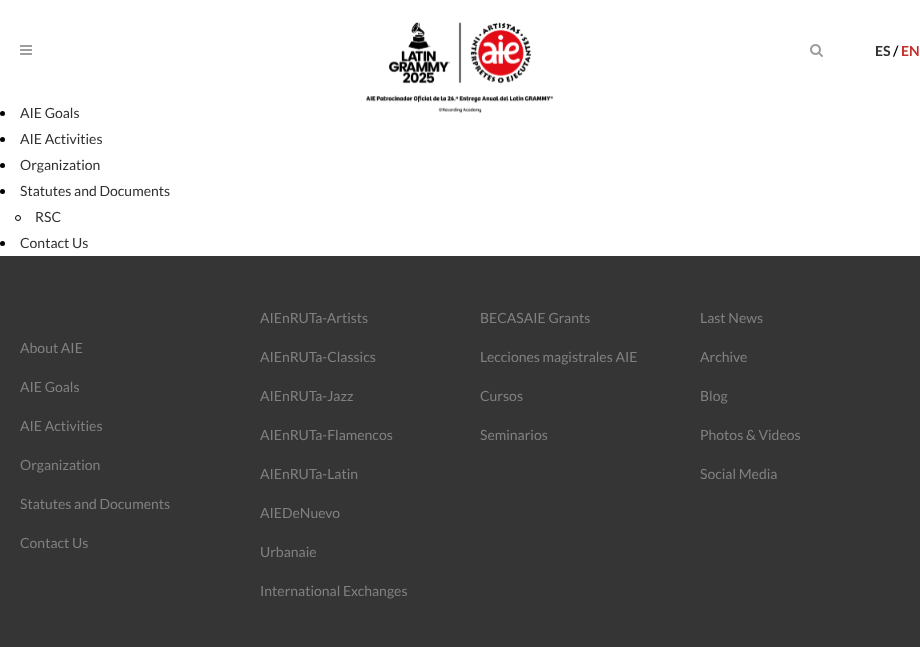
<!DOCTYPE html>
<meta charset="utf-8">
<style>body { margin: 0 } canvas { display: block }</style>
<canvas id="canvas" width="920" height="647"></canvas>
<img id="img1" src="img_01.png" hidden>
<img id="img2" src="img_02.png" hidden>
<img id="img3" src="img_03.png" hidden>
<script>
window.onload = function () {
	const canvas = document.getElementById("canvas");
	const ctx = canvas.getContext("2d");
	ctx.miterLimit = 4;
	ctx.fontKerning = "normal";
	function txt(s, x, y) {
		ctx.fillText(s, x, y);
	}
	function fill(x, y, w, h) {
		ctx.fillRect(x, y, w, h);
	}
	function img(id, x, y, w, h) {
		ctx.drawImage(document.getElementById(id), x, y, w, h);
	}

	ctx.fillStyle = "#FFFFFF";
	fill(0, 0, 920, 647);
	img("img1", 20, 45, 12, 10);
	img("img2", 366, 22, 188, 91);
	img("img3", 810, 44, 13, 13);
	ctx.fillStyle = "#000000";
	ctx.beginPath();
	ctx.arc(2.5, 113.5, 2.5, 0, Math.PI * 2);
	ctx.fill();
	ctx.beginPath();
	ctx.arc(2.5, 139.5, 2.5, 0, Math.PI * 2);
	ctx.fill();
	ctx.beginPath();
	ctx.arc(2.5, 165.5, 2.5, 0, Math.PI * 2);
	ctx.fill();
	ctx.beginPath();
	ctx.arc(2.5, 191.5, 2.5, 0, Math.PI * 2);
	ctx.fill();
	ctx.beginPath();
	ctx.arc(18, 218, 2.5, 0, Math.PI * 2);
	ctx.strokeStyle = "#000000";
	ctx.stroke();
	ctx.beginPath();
	ctx.arc(2.5, 243.5, 2.5, 0, Math.PI * 2);
	ctx.fill();
	ctx.fillStyle = "#353535";
	fill(0, 256, 920, 391);
	ctx.font = "bold 14px Lato";
	ctx.fillStyle = "#303030";
	txt("ES", 875, 56);
	ctx.fillStyle = "#000000";
	txt("/", 893, 56);
	ctx.fillStyle = "#C43029";
	txt("EN", 901, 56);
	ctx.font = "14px Lato";
	ctx.fillStyle = "#303030";
	txt("AIE Goals", 20, 118);
	txt("AIE Activities", 20, 144);
	txt("Organization", 20, 170);
	txt("Statutes and Documents", 20, 196);
	txt("RSC", 35, 222);
	txt("Contact Us", 20, 248);
	ctx.fillStyle = "#818181";
	txt("About AIE", 20, 353);
	txt("AIE Goals", 20, 392);
	txt("AIE Activities", 20, 431);
	txt("Organization", 20, 470);
	txt("Statutes and Documents", 20, 509);
	txt("Contact Us", 20, 548);
	txt("AIEnRUTa-Artists", 260, 323);
	txt("AIEnRUTa-Classics", 260, 362);
	txt("AIEnRUTa-Jazz", 260, 401);
	txt("AIEnRUTa-Flamencos", 260, 440);
	txt("AIEnRUTa-Latin", 260, 479);
	txt("AIEDeNuevo", 260, 518);
	txt("Urbanaie", 260, 557);
	txt("International Exchanges", 260, 596);
	txt("BECASAIE Grants", 480, 323);
	txt("Lecciones magistrales AIE", 480, 362);
	txt("Cursos", 480, 401);
	txt("Seminarios", 480, 440);
	txt("Last News", 700, 323);
	txt("Archive", 700, 362);
	txt("Blog", 700, 401);
	txt("Photos & Videos", 700, 440);
	txt("Social Media", 700, 479);
};
</script>
